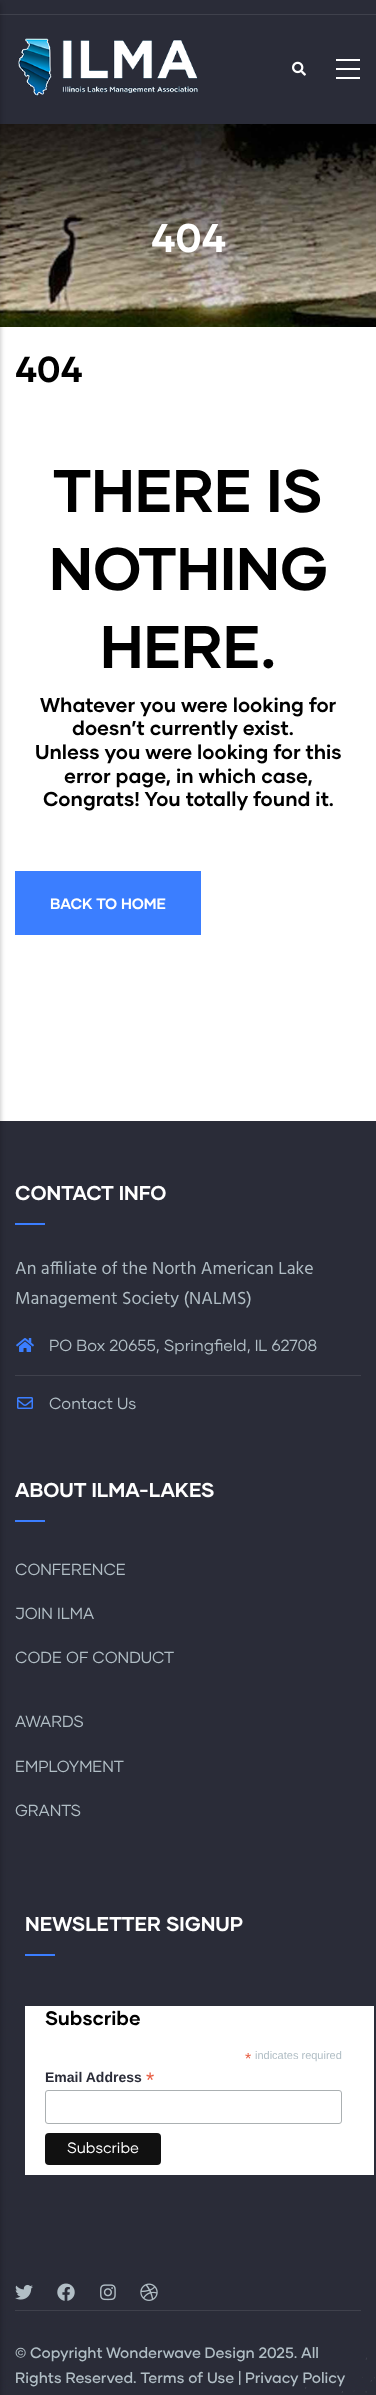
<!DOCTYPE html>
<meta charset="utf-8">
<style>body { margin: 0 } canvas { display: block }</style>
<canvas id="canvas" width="376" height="2395"></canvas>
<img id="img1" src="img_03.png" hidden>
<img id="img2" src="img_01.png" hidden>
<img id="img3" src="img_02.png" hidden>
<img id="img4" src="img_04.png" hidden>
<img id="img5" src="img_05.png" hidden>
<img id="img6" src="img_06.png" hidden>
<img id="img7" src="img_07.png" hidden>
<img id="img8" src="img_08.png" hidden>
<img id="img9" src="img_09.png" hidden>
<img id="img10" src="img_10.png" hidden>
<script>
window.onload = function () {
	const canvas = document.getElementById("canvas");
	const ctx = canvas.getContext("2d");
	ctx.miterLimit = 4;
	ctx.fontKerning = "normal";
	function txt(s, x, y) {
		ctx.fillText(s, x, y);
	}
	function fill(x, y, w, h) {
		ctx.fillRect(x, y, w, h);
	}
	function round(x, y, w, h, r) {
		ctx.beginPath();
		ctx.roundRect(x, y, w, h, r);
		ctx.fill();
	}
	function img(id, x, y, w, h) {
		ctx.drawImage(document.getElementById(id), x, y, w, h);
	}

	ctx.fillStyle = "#FFFFFF";
	fill(0, 0, 376, 2395);
	ctx.fillStyle = "#2A2C38";
	fill(0, 0, 376, 124);
	ctx.fillStyle = "#3F414C";
	fill(0, 14, 376, 1);
	img("img1", 0, 124, 376, 203);
	ctx.fillStyle = "#2A2C38";
	fill(0, 1121, 376, 1274);
	ctx.fillStyle = "rgba(0, 0, 0, 0.2)";
	ctx.filter = "blur(2px)";
	ctx.beginPath();
	ctx.rect(-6, 3, 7, 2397);
	ctx.fill();
	ctx.filter = "none";
	img("img2", 292, 61, 14, 15);
	ctx.fillStyle = "#FFFFFF";
	fill(336, 59, 24, 2);
	fill(336, 68, 24, 2);
	fill(336, 77, 24, 2);
	img("img3", 18, 38, 180, 58);
	ctx.fillStyle = "#3B7EFF";
	fill(15, 871, 186, 64);
	img("img4", 305, 2357, 70, 36);
	fill(15, 1223, 30, 2);
	ctx.fillStyle = "#3F414C";
	fill(15, 1375, 346, 1);
	img("img5", 16, 1338, 18, 14);
	img("img6", 17, 1397, 16, 12);
	ctx.fillStyle = "#3B7EFF";
	fill(15, 1520, 30, 2);
	fill(25, 1954, 30, 2);
	ctx.fillStyle = "#FFFFFF";
	fill(25, 2006, 349, 169);
	ctx.beginPath();
	ctx.roundRect(45.5, 2090.5, 296, 33, 2.5);
	ctx.strokeStyle = "#ABB0B2";
	ctx.stroke();
	ctx.fillStyle = "#111111";
	round(45, 2133, 116, 32, 4);
	img("img7", 15, 2284, 18, 16);
	img("img8", 57, 2283, 18, 18);
	img("img9", 100, 2284, 16, 17);
	img("img10", 140, 2283, 18, 18);
	ctx.fillStyle = "#3F414C";
	fill(15, 2310, 346, 1);
	ctx.font = "bold 40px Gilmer";
	ctx.fillStyle = "#FFFFFF";
	txt("404", 151, 252);
	ctx.font = "bold 36px Gilmer";
	ctx.fillStyle = "#000000";
	txt("404", 15, 382);
	ctx.font = "bold 60px Gilmer";
	txt("THERE IS", 53, 512);
	txt("NOTHING", 49, 590);
	txt("HERE.", 100, 668);
	ctx.font = "bold 20px Gilmer";
	txt("Whatever you were looking for", 40, 712);
	txt("doesn’t currently exist.", 72, 735);
	txt("Unless you were looking for this", 35, 759);
	txt("error page, in which case,", 64, 783);
	txt("Congrats! You totally found it.", 43, 806);
	ctx.font = "bold 15px Gilmer";
	ctx.fillStyle = "#FFFFFF";
	txt("BACK TO HOME", 50, 909);
	ctx.font = "bold 20px Gilmer";
	txt("CONTACT INFO", 15, 1200);
	ctx.font = "18px Hind";
	ctx.fillStyle = "#B1BEC5";
	txt("An affiliate of the North American Lake", 15, 1274);
	txt("Management Society (NALMS)", 15, 1304);
	ctx.font = "16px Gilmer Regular";
	txt("PO Box 20655, Springfield, IL 62708", 49, 1351);
	txt("Contact Us", 49, 1409);
	ctx.font = "bold 20px Gilmer";
	ctx.fillStyle = "#FFFFFF";
	txt("ABOUT ILMA-LAKES", 15, 1497);
	ctx.font = "16px Gilmer Regular";
	ctx.fillStyle = "#B1BEC5";
	txt("CONFERENCE", 15, 1575);
	txt("JOIN ILMA", 15, 1619);
	txt("CODE OF CONDUCT", 15, 1663);
	txt("AWARDS", 15, 1727);
	txt("EMPLOYMENT", 15, 1772);
	txt("GRANTS", 15, 1816);
	ctx.font = "bold 20px Gilmer";
	ctx.fillStyle = "#FFFFFF";
	txt("NEWSLETTER SIGNUP", 25, 1931);
	ctx.font = "bold 19.5px Gilmer";
	ctx.fillStyle = "#000000";
	txt("Subscribe", 45, 2025);
	ctx.font = "16px Liberation Sans";
	ctx.fillStyle = "#E85C41";
	txt("*", 245, 2064);
	ctx.font = "11px Liberation Sans";
	ctx.fillStyle = "#B1BEC5";
	txt("indicates required", 255, 2059);
	ctx.font = "bold 14px Liberation Sans";
	ctx.fillStyle = "#2A2C38";
	txt("Email Address", 45, 2082);
	ctx.font = "21px Liberation Sans";
	ctx.fillStyle = "#E85C41";
	txt("*", 146, 2087);
	ctx.font = "15px Gilmer Regular";
	ctx.fillStyle = "#FFFFFF";
	txt("Subscribe", 67, 2153);
	ctx.font = "500 15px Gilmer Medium";
	ctx.fillStyle = "#B1BEC5";
	txt("© Copyright", 15, 2358);
	txt("Wonderwave Design 2025. All", 106, 2358);
	txt("Rights Reserved. Terms of Use | Privacy Policy", 15, 2383);
};
</script>
